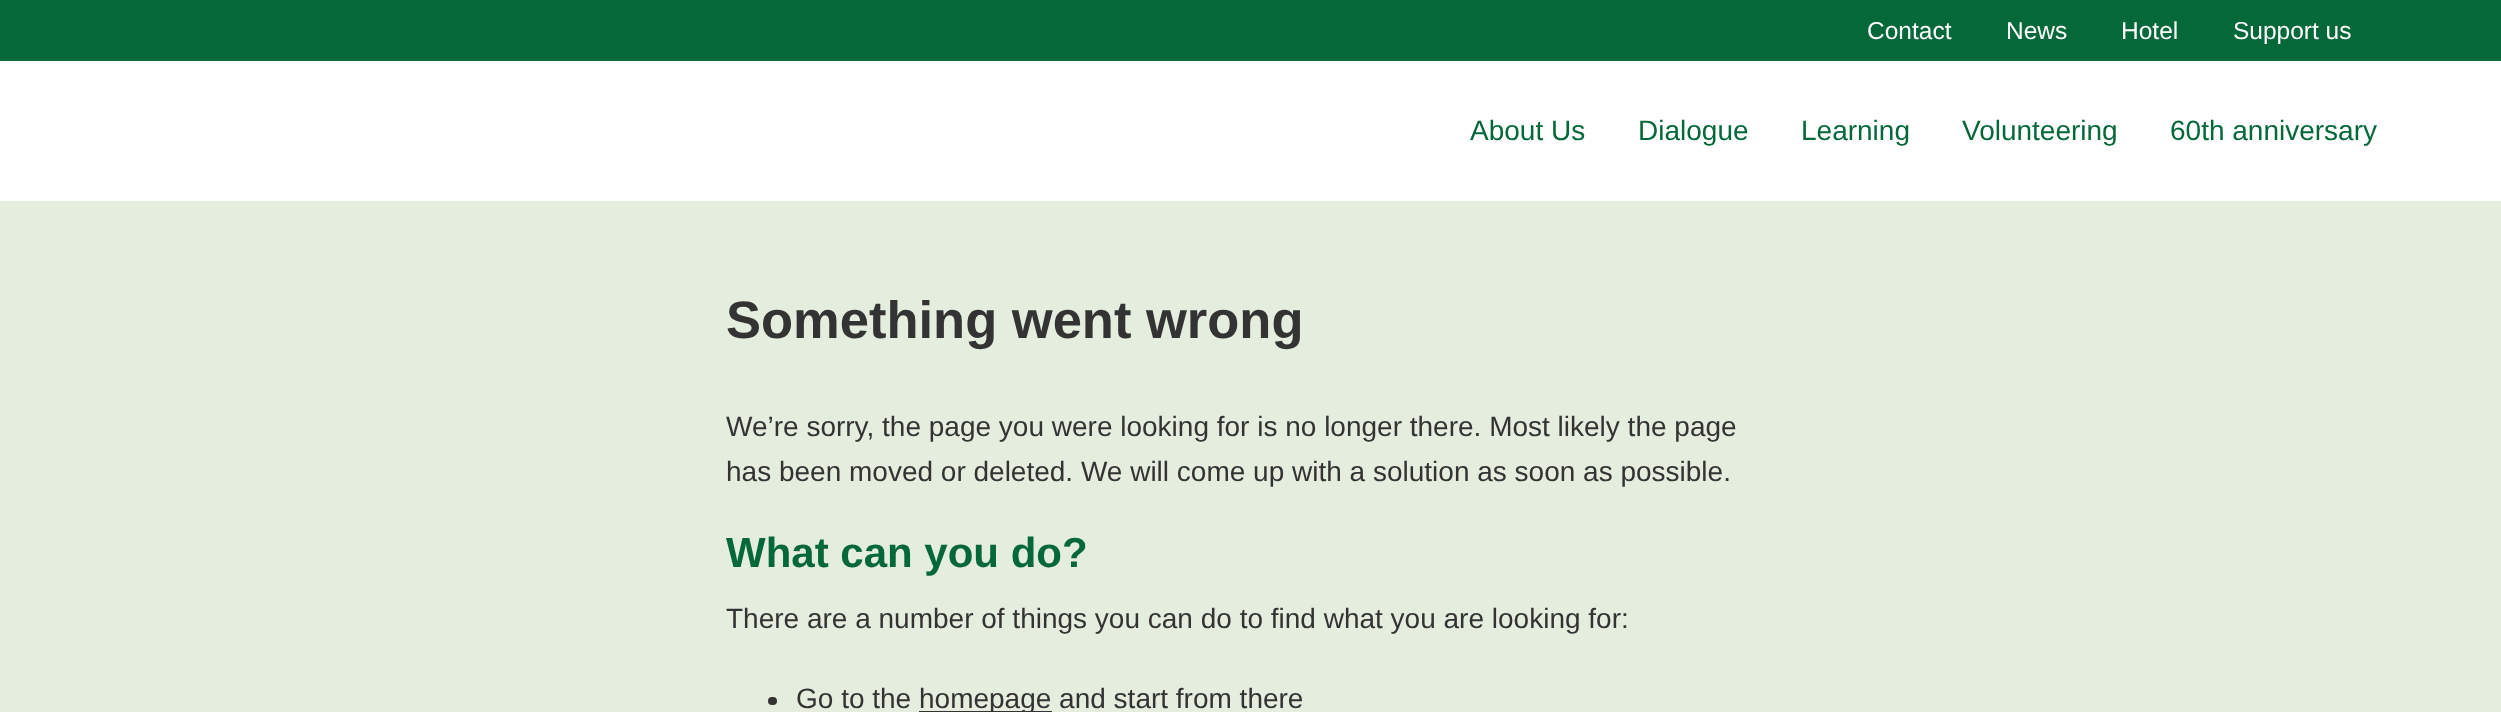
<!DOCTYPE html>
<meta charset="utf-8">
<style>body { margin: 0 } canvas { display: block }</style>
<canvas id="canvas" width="2501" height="712"></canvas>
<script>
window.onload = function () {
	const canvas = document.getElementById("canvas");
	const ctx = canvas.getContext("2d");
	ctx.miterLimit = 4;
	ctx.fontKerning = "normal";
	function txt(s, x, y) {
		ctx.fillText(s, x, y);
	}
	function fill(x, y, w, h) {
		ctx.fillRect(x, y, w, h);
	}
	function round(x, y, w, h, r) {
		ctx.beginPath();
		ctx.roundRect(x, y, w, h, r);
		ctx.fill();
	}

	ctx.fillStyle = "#E4EDDE";
	fill(0, 0, 2501, 712);
	ctx.fillStyle = "#FFFFFF";
	fill(0, 61, 2501, 140);
	ctx.fillStyle = "#056839";
	fill(0, 0, 2501, 61);
	ctx.fillStyle = "#333333";
	round(768, 697, 9, 8, 4);
	fill(919, 711, 133, 1);
	ctx.font = "24.5px Liberation Sans";
	ctx.fillStyle = "#FFFFFF";
	txt("Contact", 1867, 39);
	txt("News", 2006, 39);
	txt("Hotel", 2121, 39);
	txt("Support us", 2233, 39);
	ctx.font = "28px Liberation Sans";
	ctx.fillStyle = "#056839";
	txt("About Us", 1470, 140);
	txt("Dialogue", 1638, 140);
	txt("Learning", 1801, 140);
	txt("Volunteering", 1962, 140);
	txt("60th anniversary", 2170, 140);
	ctx.font = "bold 52.5px Liberation Sans";
	ctx.fillStyle = "#333333";
	txt("Something went wrong", 726, 338);
	ctx.font = "28px Liberation Sans";
	txt("We’re sorry, the page you were looking for is no longer there. Most likely the page", 726, 436);
	txt("has been moved or deleted. We will come up with a solution as soon as possible.", 726, 481);
	ctx.font = "bold 42px Liberation Sans";
	ctx.fillStyle = "#056839";
	txt("What can you do?", 726, 567);
	ctx.font = "28px Liberation Sans";
	ctx.fillStyle = "#333333";
	txt("There are a number of things you can do to find what you are looking for:", 726, 628);
	txt("Go to the", 796, 708);
	txt("homepage and start from there", 919, 708);
};
</script>
